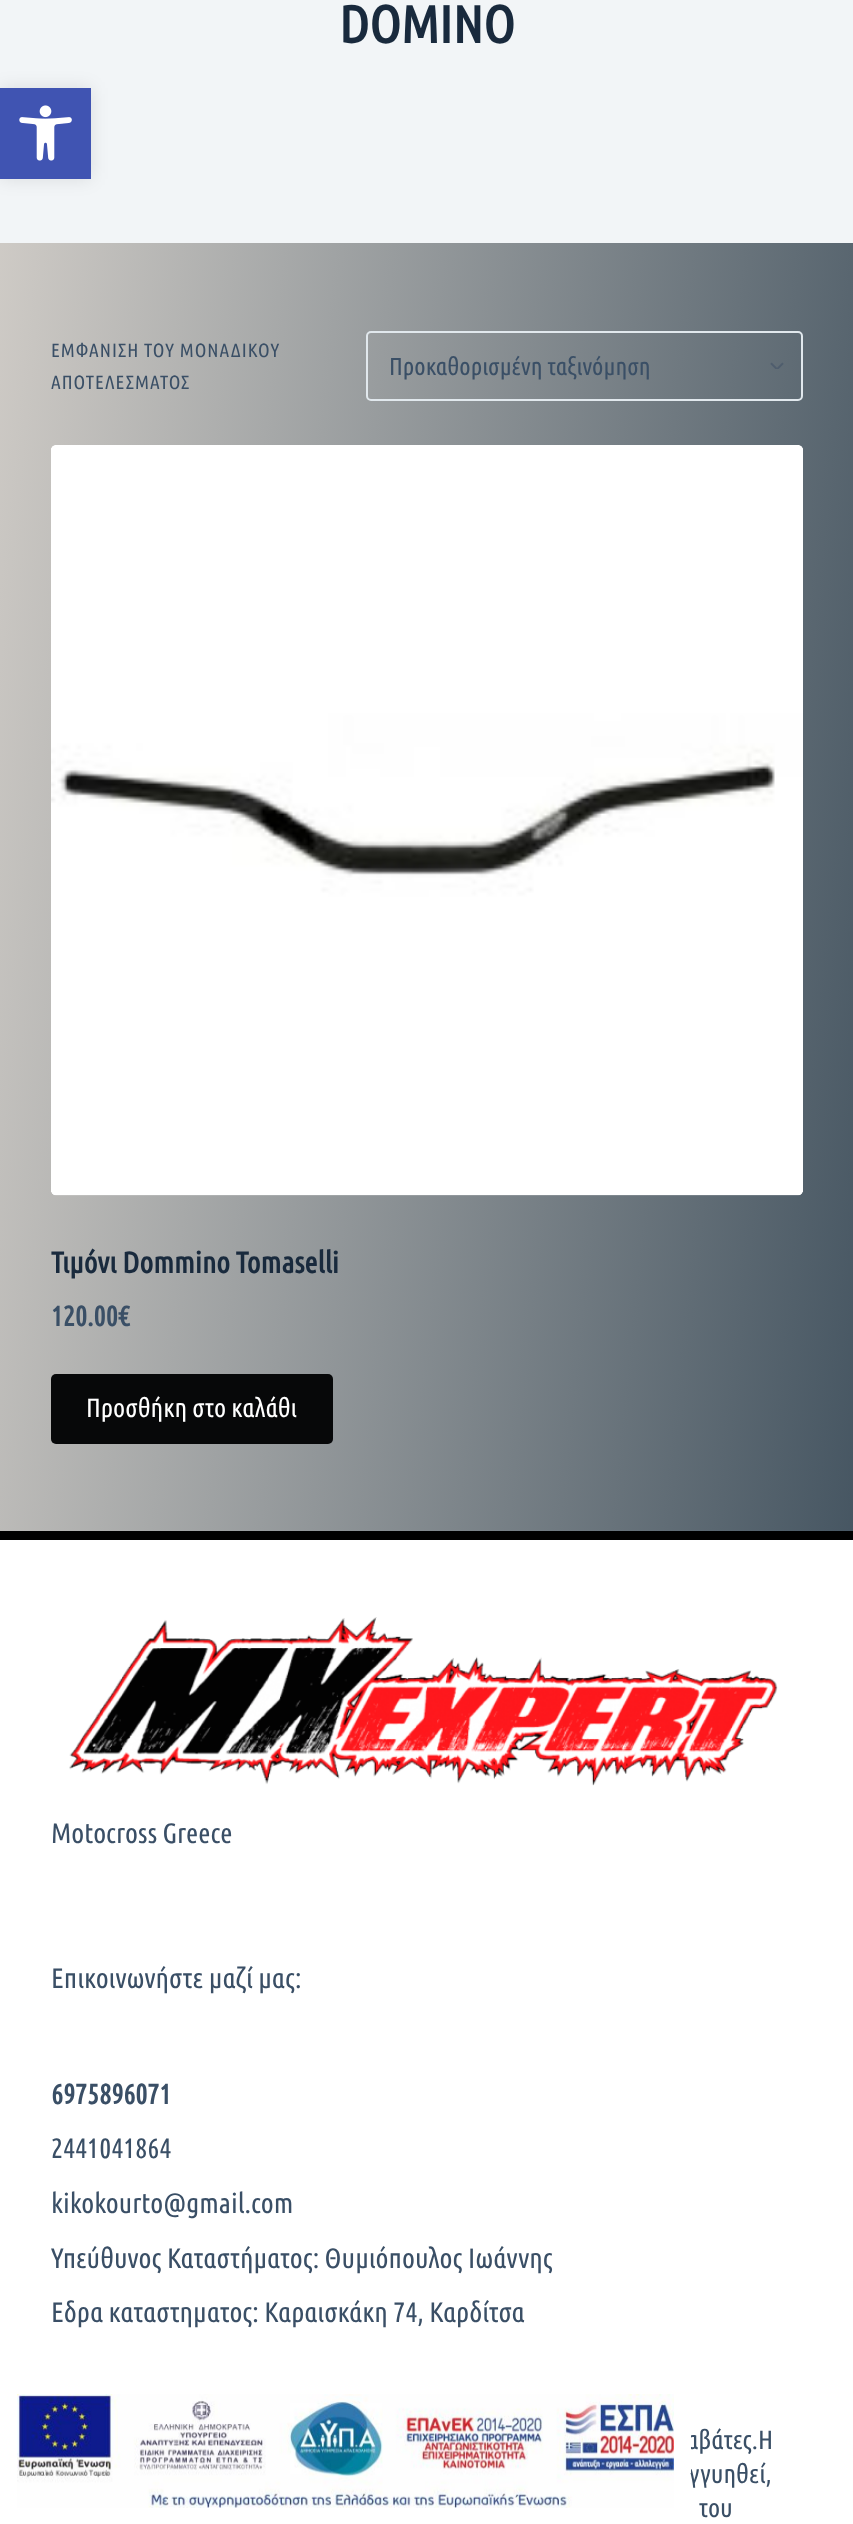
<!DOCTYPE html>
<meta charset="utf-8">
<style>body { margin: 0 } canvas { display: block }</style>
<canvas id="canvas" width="853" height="2524"></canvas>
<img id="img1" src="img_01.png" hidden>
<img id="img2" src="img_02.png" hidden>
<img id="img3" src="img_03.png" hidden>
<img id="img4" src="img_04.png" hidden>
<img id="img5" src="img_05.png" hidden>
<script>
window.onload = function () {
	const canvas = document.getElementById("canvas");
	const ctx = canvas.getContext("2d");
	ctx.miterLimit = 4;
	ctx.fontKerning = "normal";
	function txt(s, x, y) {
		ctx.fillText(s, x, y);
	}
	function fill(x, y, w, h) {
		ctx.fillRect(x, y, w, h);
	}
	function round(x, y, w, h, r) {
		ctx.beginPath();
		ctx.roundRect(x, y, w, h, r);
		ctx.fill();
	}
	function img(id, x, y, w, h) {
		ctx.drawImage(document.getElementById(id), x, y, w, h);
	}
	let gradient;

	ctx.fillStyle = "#FFFFFF";
	fill(0, 0, 853, 2524);
	gradient = ctx.createLinearGradient(-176, 1295, 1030, 1421);
	gradient.addColorStop(0, "#D7D2CC");
	gradient.addColorStop(1, "#304352");
	ctx.fillStyle = gradient;
	fill(0, 243, 853, 1288);
	ctx.fillStyle = "#F2F5F7";
	fill(0, 0, 853, 243);
	img("img1", 770, 362, 14, 7);
	ctx.beginPath();
	ctx.roundRect(367, 332, 435, 68, 4);
	ctx.strokeStyle = "#E1E8ED";
	ctx.lineWidth = 2;
	ctx.stroke();
	img("img2", 51, 445, 752, 751);
	ctx.fillStyle = "#070809";
	round(51, 1374, 282, 70, 5);
	ctx.fillStyle = "#000000";
	fill(0, 1531, 853, 9);
	img("img3", 69, 1617, 709, 169);
	ctx.fillStyle = "rgba(0, 0, 0, 0.1)";
	ctx.filter = "blur(9px)";
	ctx.beginPath();
	ctx.rect(0, 88, 91, 91);
	ctx.fill();
	ctx.filter = "none";
	ctx.fillStyle = "#4054B2";
	fill(0, 88, 91, 91);
	img("img4", 19, 105, 53, 56);
	img("img5", 17, 2394, 657, 114);
	ctx.font = "bold 52.5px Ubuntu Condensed";
	ctx.fillStyle = "#192A3D";
	txt("DOMINO", 339, 43);
	ctx.letterSpacing = "1px";
	ctx.font = "19.25px Ubuntu Condensed";
	ctx.fillStyle = "#3A4F66";
	txt("ΕΜΦΑΝΙΣΗ ΤΟΥ ΜΟΝΑΔΙΚΟΥ", 51, 357);
	txt("ΑΠΟΤΕΛΕΣΜΑΤΟΣ", 51, 389);
	ctx.letterSpacing = "0px";
	ctx.font = "24.5px Ubuntu Condensed";
	txt("Προκαθορισμένη ταξινόμηση", 389, 375);
	ctx.font = "bold 29.75px Ubuntu Condensed";
	ctx.fillStyle = "#192A3D";
	txt("Τιμόνι Dommino Tomaselli", 51, 1273);
	ctx.font = "bold 28px Ubuntu Condensed";
	ctx.fillStyle = "#3A4F66";
	txt("120.00€", 51, 1326);
	ctx.font = "26.25px Ubuntu Condensed";
	ctx.fillStyle = "#FFFFFF";
	txt("Προσθήκη στο καλάθι", 86, 1417);
	ctx.font = "28px Ubuntu Condensed";
	ctx.fillStyle = "#3A4F66";
	txt("Motocross Greece", 51, 1843);
	txt("Επικοινωνήστε μαζί μας:", 51, 1988);
	ctx.font = "bold 28px Ubuntu Condensed";
	txt("6975896071", 51, 2104);
	ctx.font = "28px Ubuntu Condensed";
	txt("2441041864", 51, 2158);
	txt("kikokourto@gmail.com", 51, 2213);
	txt("Υπεύθυνος Καταστήματος: Θυμιόπουλος Ιωάννης", 51, 2268);
	txt("Εδρα καταστηματος: Καραισκάκη 74, Καρδίτσα", 51, 2322);
	ctx.font = "26.25px Ubuntu Condensed";
	txt("αβάτες.Η", 686, 2449);
	txt("γγυηθεί,", 689, 2483);
	txt("του", 699, 2517);
	ctx.fillStyle = "#FFFFFF";
	fill(687, 2435, 4, 38);
};
</script>
